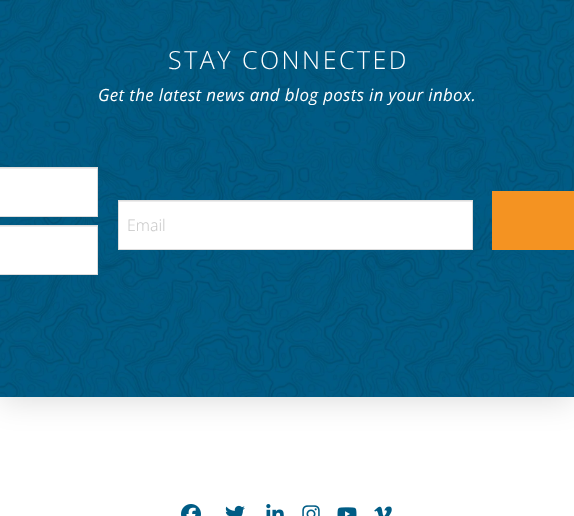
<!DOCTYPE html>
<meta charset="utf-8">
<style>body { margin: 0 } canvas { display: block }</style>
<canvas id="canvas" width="574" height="516"></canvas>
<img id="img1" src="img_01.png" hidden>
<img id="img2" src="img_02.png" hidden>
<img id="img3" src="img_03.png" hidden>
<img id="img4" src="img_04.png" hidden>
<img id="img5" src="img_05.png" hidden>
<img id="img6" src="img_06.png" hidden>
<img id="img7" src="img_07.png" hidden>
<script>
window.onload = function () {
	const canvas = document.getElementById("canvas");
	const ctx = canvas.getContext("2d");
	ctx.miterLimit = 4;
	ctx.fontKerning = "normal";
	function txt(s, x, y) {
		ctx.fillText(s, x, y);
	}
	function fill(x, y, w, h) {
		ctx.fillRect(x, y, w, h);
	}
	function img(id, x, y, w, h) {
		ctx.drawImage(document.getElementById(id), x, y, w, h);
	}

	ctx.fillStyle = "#FFFFFF";
	fill(0, 0, 574, 516);
	ctx.fillStyle = "rgba(0, 0, 0, 0.15)";
	ctx.filter = "blur(16px)";
	ctx.beginPath();
	ctx.rect(0, -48, 574, 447);
	ctx.fill();
	ctx.filter = "none";
	img("img1", 0, 0, 574, 397);
	ctx.fillStyle = "#FFFFFF";
	fill(0, 169, 97, 47);
	ctx.fillStyle = "#ECECEC";
	fill(0, 168, 97, 1);
	ctx.strokeStyle = "#DDDDDD";
	ctx.strokeRect(-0.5, 167.5, 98, 49);
	ctx.fillStyle = "#FFFFFF";
	fill(0, 227, 97, 47);
	ctx.fillStyle = "#ECECEC";
	fill(0, 226, 97, 1);
	ctx.strokeRect(-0.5, 225.5, 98, 49);
	ctx.fillStyle = "#FFFFFF";
	fill(119, 202, 353, 47);
	ctx.fillStyle = "#ECECEC";
	fill(119, 201, 353, 1);
	ctx.strokeRect(118.5, 200.5, 354, 49);
	ctx.fillStyle = "#F49322";
	fill(492, 191, 82, 59);
	img("img2", 181, 504, 20, 12);
	img("img3", 225, 505, 20, 11);
	img("img4", 266, 504, 18, 12);
	img("img5", 302, 505, 18, 11);
	img("img6", 337, 507, 20, 9);
	img("img7", 374, 506, 18, 10);
	ctx.letterSpacing = "2.5px";
	ctx.font = "300 25px Open Sans";
	ctx.fillStyle = "#FFFFFF";
	txt("STAY CONNECTED", 168, 69);
	ctx.letterSpacing = "0.35px";
	ctx.font = "italic 16.9px Open Sans";
	txt("Get the latest news and blog posts in your inbox.", 98, 101);
	ctx.letterSpacing = "0px";
	ctx.font = "300 16px Open Sans";
	ctx.fillStyle = "#C5C5C5";
	txt("Email", 127, 231);
};
</script>
